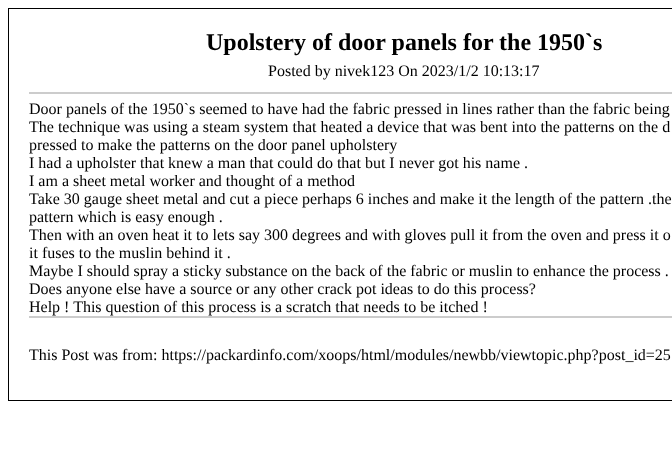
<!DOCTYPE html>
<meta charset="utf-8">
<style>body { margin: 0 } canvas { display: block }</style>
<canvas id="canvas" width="672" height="465"></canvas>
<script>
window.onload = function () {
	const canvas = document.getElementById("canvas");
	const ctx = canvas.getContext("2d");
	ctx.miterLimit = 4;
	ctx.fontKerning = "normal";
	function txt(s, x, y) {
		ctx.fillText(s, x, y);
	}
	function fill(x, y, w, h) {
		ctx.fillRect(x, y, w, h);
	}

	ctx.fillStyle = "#FFFFFF";
	fill(0, 0, 672, 465);
	ctx.strokeStyle = "#000000";
	ctx.strokeRect(8.5, 8.5, 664, 392);
	ctx.fillStyle = "#CCCCCC";
	fill(29, 92, 643, 2);
	fill(29, 316, 643, 2);
	ctx.font = "bold 24px Liberation Serif";
	ctx.fillStyle = "#000000";
	txt("Upolstery of door panels for the 1950`s", 206, 50);
	ctx.font = "16px Liberation Serif";
	txt("Posted by nivek123 On 2023/1/2 10:13:17", 268, 76);
	txt("Door panels of the 1950`s seemed to have had the fabric pressed in lines rather than the fabric being", 29, 114);
	txt("The technique was using a steam system that heated a device that was bent into the patterns on the d", 29, 132);
	txt("pressed to make the patterns on the door panel upholstery", 29, 150);
	txt("I had a upholster that knew a man that could do that but I never got his name .", 29, 168);
	txt("I am a sheet metal worker and thought of a method", 29, 186);
	txt("Take 30 gauge sheet metal and cut a piece perhaps 6 inches and make it the length of the pattern .the", 29, 204);
	txt("pattern which is easy enough .", 29, 222);
	txt("Then with an oven heat it to lets say 300 degrees and with gloves pull it from the oven and press it o", 29, 240);
	txt("it fuses to the muslin behind it .", 29, 258);
	txt("Maybe I should spray a sticky substance on the back of the fabric or muslin to enhance the process .", 29, 276);
	txt("Does anyone else have a source or any other crack pot ideas to do this process?", 29, 294);
	txt("Help ! This question of this process is a scratch that needs to be itched !", 29, 312);
	txt("This Post was from: https://packardinfo.com/xoops/html/modules/newbb/viewtopic.php?post_id=25", 29, 360);
};
</script>
